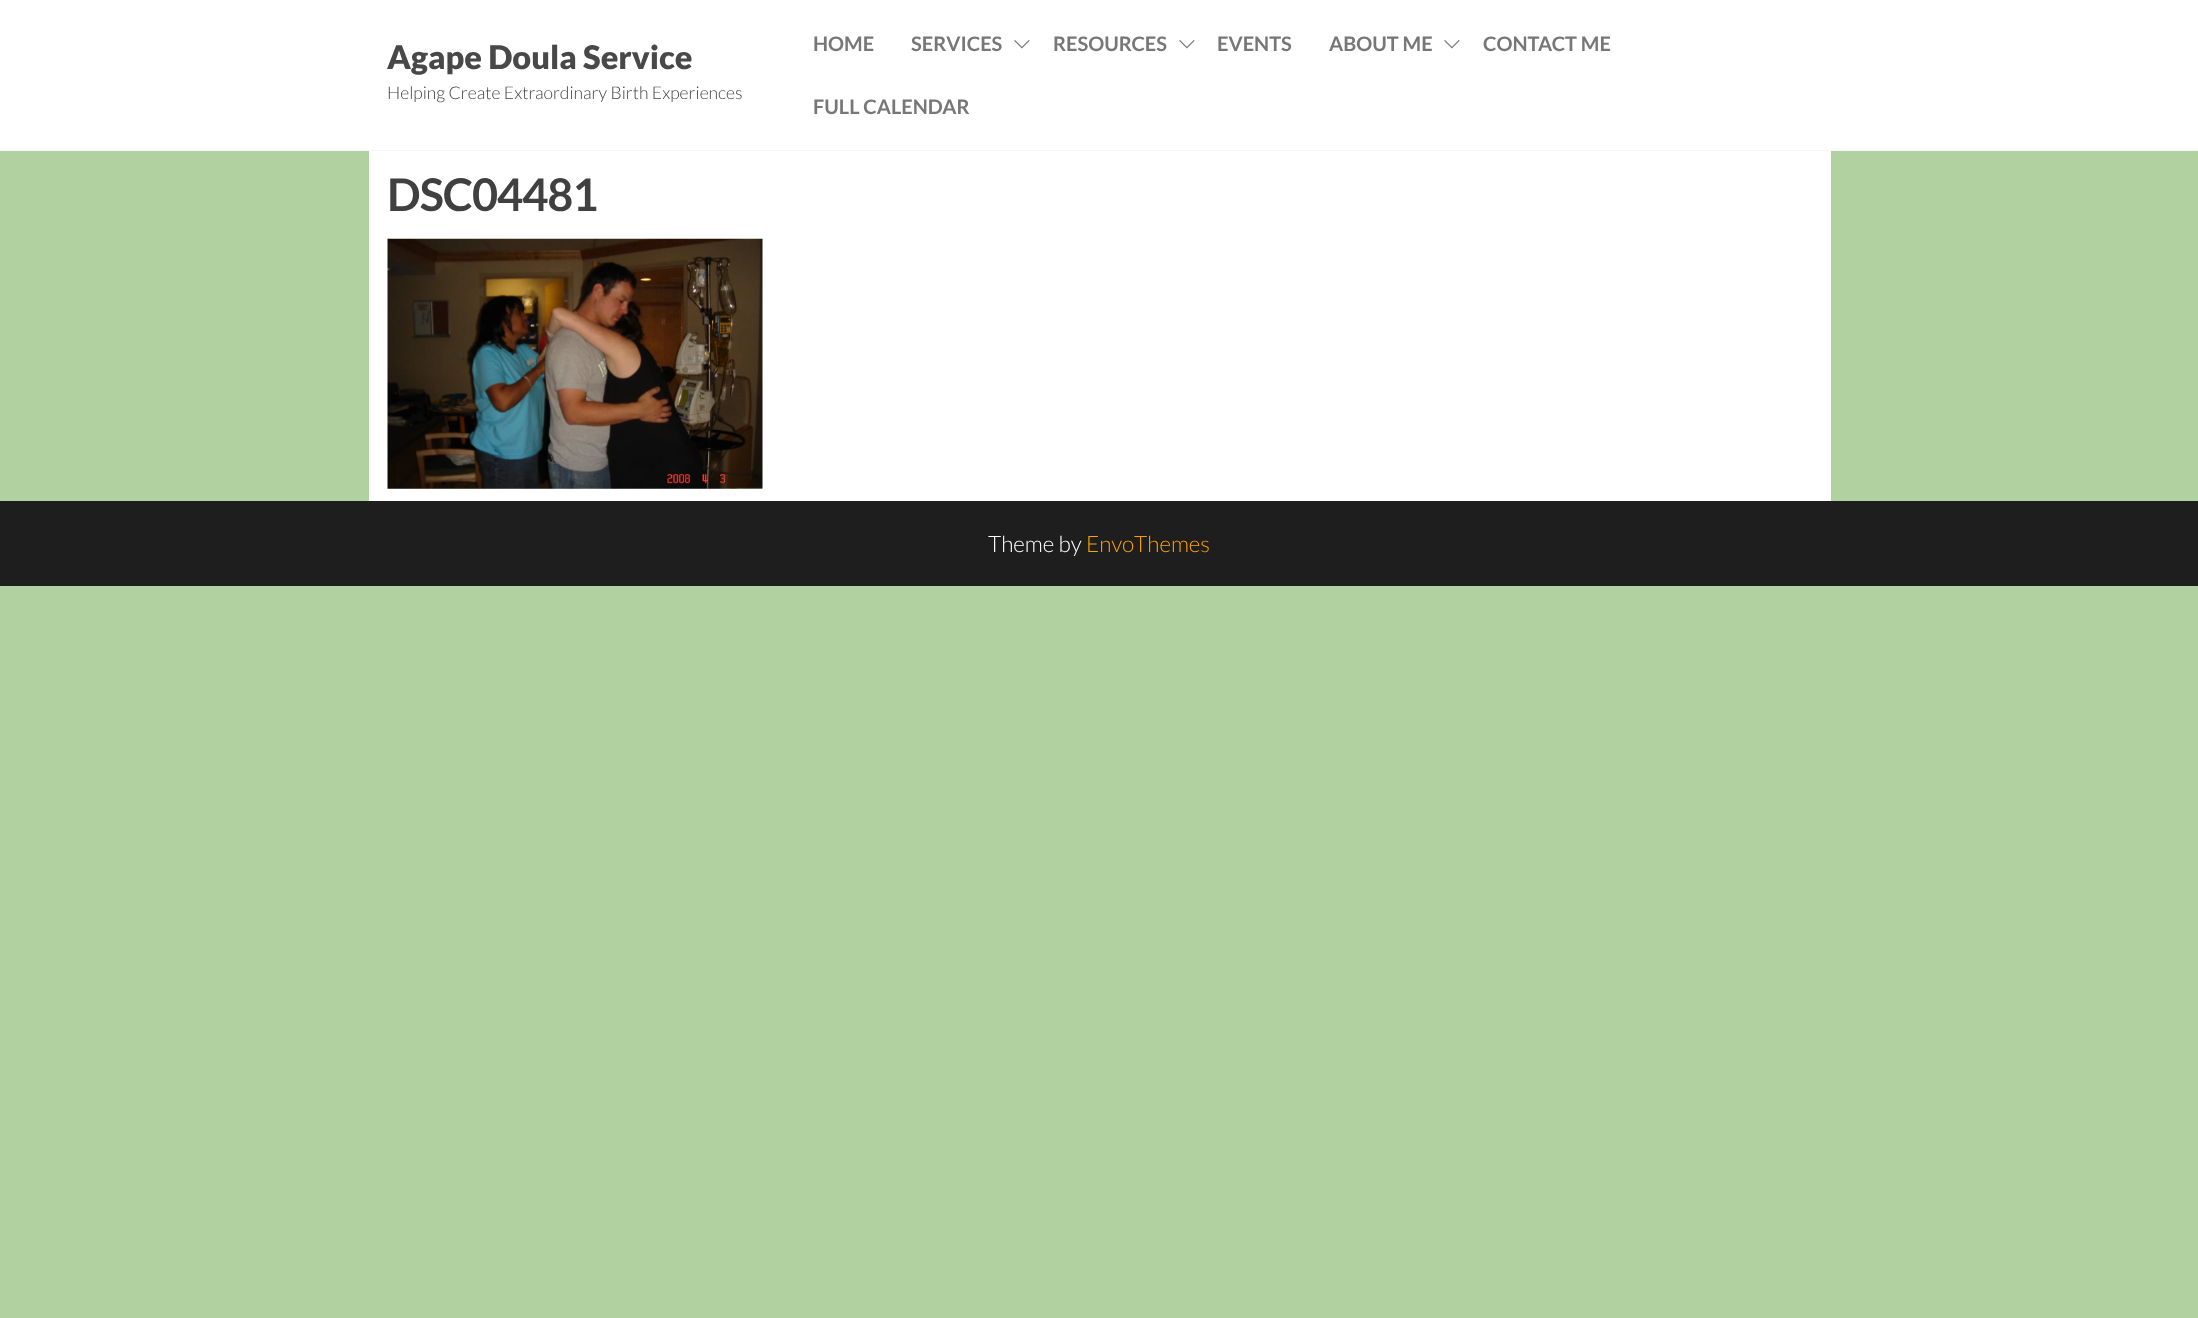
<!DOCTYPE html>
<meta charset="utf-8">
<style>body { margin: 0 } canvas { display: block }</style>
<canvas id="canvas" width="2198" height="1318"></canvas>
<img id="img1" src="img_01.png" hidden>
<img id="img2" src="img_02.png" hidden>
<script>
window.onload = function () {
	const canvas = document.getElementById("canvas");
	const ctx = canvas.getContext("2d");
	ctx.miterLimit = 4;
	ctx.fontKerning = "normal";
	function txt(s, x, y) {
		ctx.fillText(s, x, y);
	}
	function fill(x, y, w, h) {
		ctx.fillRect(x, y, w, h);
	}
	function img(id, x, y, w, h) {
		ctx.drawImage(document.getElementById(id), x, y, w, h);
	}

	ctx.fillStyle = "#B2D1A1";
	fill(0, 0, 2198, 1318);
	ctx.fillStyle = "#FFFFFF";
	fill(0, 0, 2198, 150);
	ctx.fillStyle = "#F6F6F6";
	fill(0, 150, 2198, 1);
	img("img1", 1014, 40, 16, 9);
	img("img1", 1179, 40, 16, 9);
	img("img1", 1444, 40, 16, 9);
	ctx.fillStyle = "#FFFFFF";
	fill(369, 151, 1462, 350);
	img("img2", 387, 238, 376, 251);
	ctx.fillStyle = "#1E1E1E";
	fill(0, 501, 2198, 85);
	ctx.font = "900 32.5px Lato";
	ctx.fillStyle = "#484848";
	txt("Agape Doula Service", 387, 69);
	ctx.font = "300 17.5px Lato";
	ctx.fillStyle = "#404040";
	txt("Helping Create Extraordinary Birth Experiences", 387, 99);
	ctx.font = "bold 20px Lato";
	ctx.fillStyle = "#777777";
	txt("HOME", 813, 51);
	txt("SERVICES", 911, 51);
	txt("RESOURCES", 1053, 51);
	txt("EVENTS", 1217, 51);
	txt("ABOUT ME", 1329, 51);
	txt("CONTACT ME", 1483, 51);
	txt("FULL CALENDAR", 813, 114);
	ctx.letterSpacing = "-1px";
	ctx.font = "bold 45px Lato";
	ctx.fillStyle = "#404040";
	txt("DSC04481", 387, 211);
	ctx.letterSpacing = "0px";
	ctx.font = "300 22.5px Lato";
	ctx.fillStyle = "#FFFFFF";
	txt("Theme by", 988, 552);
	ctx.fillStyle = "#FFA200";
	txt("EnvoThemes", 1086, 552);
};
</script>
